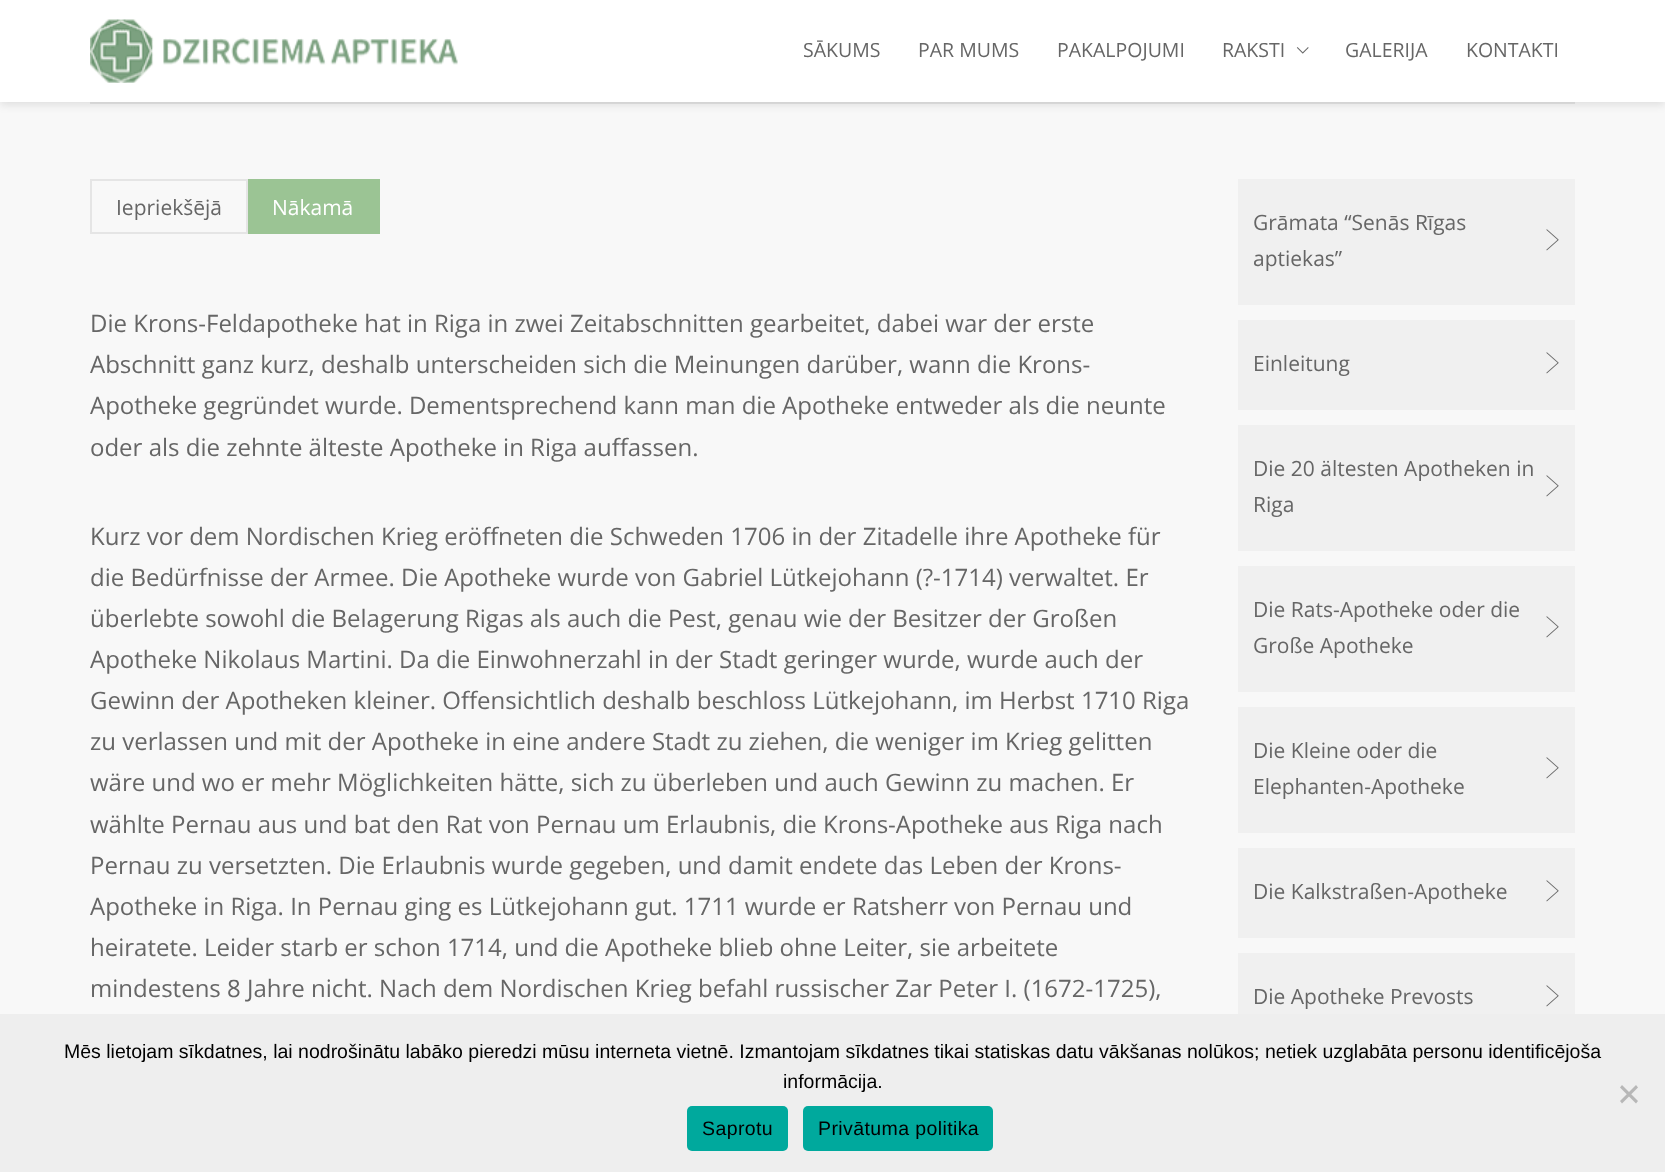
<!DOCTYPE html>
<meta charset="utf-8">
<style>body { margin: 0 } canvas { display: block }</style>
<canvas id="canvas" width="1665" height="1172"></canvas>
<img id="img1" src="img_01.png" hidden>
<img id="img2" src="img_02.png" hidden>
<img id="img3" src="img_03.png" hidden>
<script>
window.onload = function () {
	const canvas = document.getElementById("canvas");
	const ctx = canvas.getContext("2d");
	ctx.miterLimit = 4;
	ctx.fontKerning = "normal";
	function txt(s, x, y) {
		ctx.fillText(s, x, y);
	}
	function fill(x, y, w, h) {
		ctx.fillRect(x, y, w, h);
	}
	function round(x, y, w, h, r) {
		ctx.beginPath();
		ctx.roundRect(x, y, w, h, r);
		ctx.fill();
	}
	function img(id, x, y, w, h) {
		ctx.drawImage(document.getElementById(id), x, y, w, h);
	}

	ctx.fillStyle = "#F8F8F8";
	fill(0, 0, 1665, 1172);
	ctx.fillStyle = "#E5E5E5";
	fill(90, 102, 1485, 2);
	ctx.fillStyle = "rgba(0, 0, 0, 0.1)";
	ctx.filter = "blur(4px)";
	ctx.beginPath();
	ctx.rect(0, 3, 1665, 102);
	ctx.fill();
	ctx.filter = "none";
	ctx.fillStyle = "#FFFFFF";
	fill(0, 0, 1665, 102);
	img("img1", 90, 19, 368, 64);
	img("img2", 1296, 47, 13, 7);
	ctx.strokeStyle = "#E5E5E5";
	ctx.lineWidth = 2;
	ctx.strokeRect(91, 180, 156, 53);
	ctx.fillStyle = "#9BC494";
	fill(248, 179, 132, 55);
	ctx.fillStyle = "#F0F0F0";
	fill(1238, 179, 337, 126);
	img("img3", 1546, 229, 13, 22);
	fill(1238, 320, 337, 90);
	img("img3", 1546, 352, 13, 22);
	fill(1238, 425, 337, 126);
	img("img3", 1546, 475, 13, 22);
	fill(1238, 566, 337, 126);
	img("img3", 1546, 616, 13, 22);
	fill(1238, 707, 337, 126);
	img("img3", 1546, 757, 13, 22);
	fill(1238, 848, 337, 90);
	img("img3", 1546, 880, 13, 22);
	fill(1238, 953, 337, 61);
	img("img3", 1546, 985, 13, 22);
	ctx.fillStyle = "#EEEEEE";
	fill(0, 1014, 1665, 158);
	ctx.fillStyle = "#B7B7B7";
	ctx.beginPath();
	ctx.moveTo(1636, 1085);
	ctx.lineTo(1638, 1087.5);
	ctx.lineTo(1622, 1103.5);
	ctx.lineTo(1620, 1101);
	ctx.closePath();
	ctx.fill();
	ctx.beginPath();
	ctx.moveTo(1620, 1087.5);
	ctx.lineTo(1622, 1085);
	ctx.lineTo(1638, 1101);
	ctx.lineTo(1636, 1103.5);
	ctx.closePath();
	ctx.fill();
	ctx.fillStyle = "#00A99D";
	round(687, 1106, 101, 45, 5);
	round(803, 1106, 190, 45, 5);
	ctx.font = "19.5px Open Sans";
	ctx.fillStyle = "#666666";
	txt("SĀKUMS", 803, 57);
	txt("PAR MUMS", 918, 57);
	txt("PAKALPOJUMI", 1057, 57);
	txt("RAKSTI", 1222, 57);
	txt("GALERIJA", 1345, 57);
	txt("KONTAKTI", 1466, 57);
	ctx.font = "21px Open Sans";
	txt("Iepriekšējā", 116, 215);
	ctx.fillStyle = "#FFFFFF";
	txt("Nākamā", 272, 215);
	ctx.font = "24px Open Sans";
	ctx.fillStyle = "#666666";
	txt("Die Krons-Feldapotheke hat in Riga in zwei Zeitabschnitten gearbeitet, dabei war der erste", 90, 332);
	txt("Abschnitt ganz kurz, deshalb unterscheiden sich die Meinungen darüber, wann die Krons-", 90, 373);
	txt("Apotheke gegründet wurde. Dementsprechend kann man die Apotheke entweder als die neunte", 90, 414);
	txt("oder als die zehnte älteste Apotheke in Riga auffassen.", 90, 456);
	txt("Kurz vor dem Nordischen Krieg eröffneten die Schweden 1706 in der Zitadelle ihre Apotheke für", 90, 545);
	txt("die Bedürfnisse der Armee. Die Apotheke wurde von Gabriel Lütkejohann (?-1714) verwaltet. Er", 90, 586);
	txt("überlebte sowohl die Belagerung Rigas als auch die Pest, genau wie der Besitzer der Großen", 90, 627);
	txt("Apotheke Nikolaus Martini. Da die Einwohnerzahl in der Stadt geringer wurde, wurde auch der", 90, 668);
	txt("Gewinn der Apotheken kleiner. Offensichtlich deshalb beschloss Lütkejohann, im Herbst 1710 Riga", 90, 709);
	txt("zu verlassen und mit der Apotheke in eine andere Stadt zu ziehen, die weniger im Krieg gelitten", 90, 750);
	txt("wäre und wo er mehr Möglichkeiten hätte, sich zu überleben und auch Gewinn zu machen. Er", 90, 791);
	txt("wählte Pernau aus und bat den Rat von Pernau um Erlaubnis, die Krons-Apotheke aus Riga nach", 90, 833);
	txt("Pernau zu versetzten. Die Erlaubnis wurde gegeben, und damit endete das Leben der Krons-", 90, 874);
	txt("Apotheke in Riga. In Pernau ging es Lütkejohann gut. 1711 wurde er Ratsherr von Pernau und", 90, 915);
	txt("heiratete. Leider starb er schon 1714, und die Apotheke blieb ohne Leiter, sie arbeitete", 90, 956);
	txt("mindestens 8 Jahre nicht. Nach dem Nordischen Krieg befahl russischer Zar Peter I. (1672-1725),", 90, 997);
	ctx.font = "21px Open Sans";
	txt("Grāmata “Senās Rīgas", 1253, 230);
	txt("aptiekas”", 1253, 266);
	txt("Einleitung", 1253, 371);
	txt("Die 20 ältesten Apotheken in", 1253, 476);
	txt("Riga", 1253, 512);
	txt("Die Rats-Apotheke oder die", 1253, 617);
	txt("Große Apotheke", 1253, 653);
	txt("Die Kleine oder die", 1253, 758);
	txt("Elephanten-Apotheke", 1253, 794);
	txt("Die Kalkstraßen-Apotheke", 1253, 899);
	txt("Die Apotheke Prevosts", 1253, 1004);
	ctx.font = "19.5px Liberation Sans";
	ctx.fillStyle = "#000000";
	txt("Mēs lietojam sīkdatnes, lai nodrošinātu labāko pieredzi mūsu interneta vietnē. Izmantojam sīkdatnes tikai statiskas datu vākšanas nolūkos; netiek uzglabāta personu identificējoša", 64, 1058);
	txt("informācija.", 783, 1088);
	ctx.letterSpacing = "0.4px";
	txt("Saprotu", 702, 1135);
	txt("Privātuma politika", 818, 1135);
};
</script>
